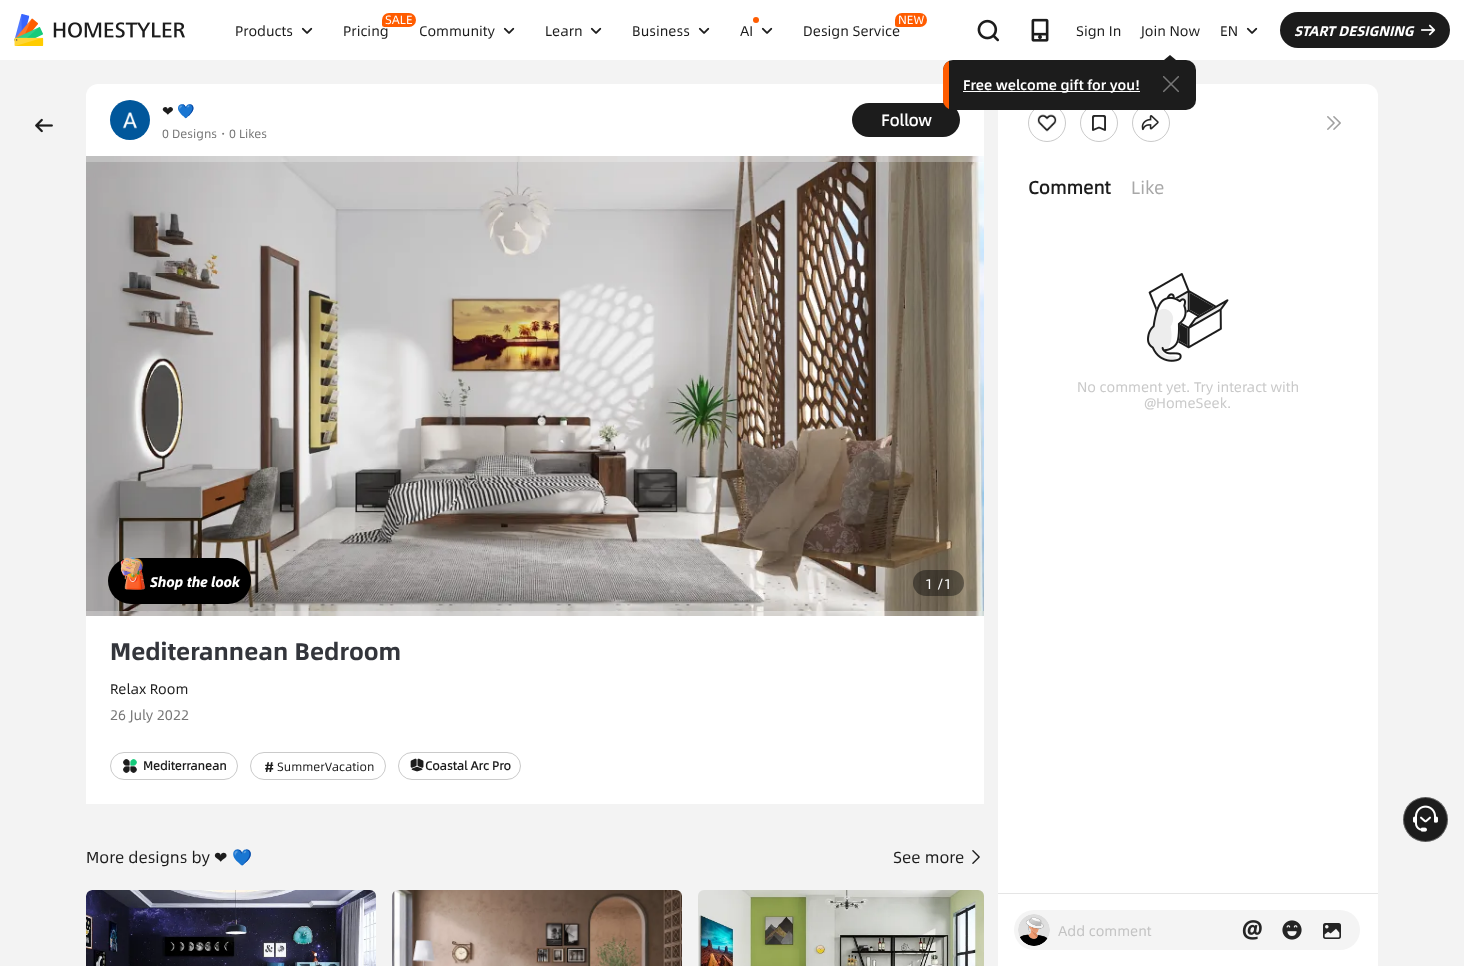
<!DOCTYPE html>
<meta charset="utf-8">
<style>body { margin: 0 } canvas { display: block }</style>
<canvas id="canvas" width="1464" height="966"></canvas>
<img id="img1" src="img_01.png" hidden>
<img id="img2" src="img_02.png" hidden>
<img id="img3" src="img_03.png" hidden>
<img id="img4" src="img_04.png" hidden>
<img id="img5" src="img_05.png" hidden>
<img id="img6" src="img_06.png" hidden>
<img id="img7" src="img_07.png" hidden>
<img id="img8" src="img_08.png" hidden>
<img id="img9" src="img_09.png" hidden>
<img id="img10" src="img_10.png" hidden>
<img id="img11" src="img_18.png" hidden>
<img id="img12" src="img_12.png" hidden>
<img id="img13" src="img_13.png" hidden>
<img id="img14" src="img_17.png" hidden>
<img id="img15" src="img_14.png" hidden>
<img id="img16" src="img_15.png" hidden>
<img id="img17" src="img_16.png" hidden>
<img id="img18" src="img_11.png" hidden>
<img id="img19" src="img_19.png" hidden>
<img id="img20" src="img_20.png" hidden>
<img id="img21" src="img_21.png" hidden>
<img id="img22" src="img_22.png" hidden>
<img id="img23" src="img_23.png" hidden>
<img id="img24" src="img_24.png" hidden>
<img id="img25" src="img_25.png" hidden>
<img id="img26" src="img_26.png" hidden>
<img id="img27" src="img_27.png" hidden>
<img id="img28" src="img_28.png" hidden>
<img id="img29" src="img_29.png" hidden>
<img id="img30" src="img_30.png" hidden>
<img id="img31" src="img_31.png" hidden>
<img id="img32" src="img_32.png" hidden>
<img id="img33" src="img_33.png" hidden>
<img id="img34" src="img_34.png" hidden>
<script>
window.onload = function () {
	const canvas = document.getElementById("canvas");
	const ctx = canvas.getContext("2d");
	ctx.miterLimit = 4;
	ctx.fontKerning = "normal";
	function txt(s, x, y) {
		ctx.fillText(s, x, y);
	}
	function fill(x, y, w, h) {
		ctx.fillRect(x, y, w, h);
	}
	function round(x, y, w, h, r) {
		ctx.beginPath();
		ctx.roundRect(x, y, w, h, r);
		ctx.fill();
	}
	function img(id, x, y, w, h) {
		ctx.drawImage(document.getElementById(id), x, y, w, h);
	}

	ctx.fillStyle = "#F3F3F3";
	fill(0, 0, 1464, 966);
	ctx.fillStyle = "#FFFFFF";
	fill(0, 0, 1464, 60);
	img("img1", 14, 14, 171, 32);
	img("img2", 301, 27, 12, 7);
	img("img2", 503, 27, 12, 7);
	img("img2", 590, 27, 12, 7);
	img("img2", 698, 27, 12, 7);
	ctx.fillStyle = "#FF5C00";
	ctx.beginPath();
	ctx.arc(756, 20, 3, 0, Math.PI * 2);
	ctx.fill();
	img("img2", 761, 27, 12, 7);
	img("img3", 977, 19, 22, 23);
	img("img4", 1031, 18, 18, 24);
	ctx.fillStyle = "#1C1C1C";
	ctx.beginPath();
	ctx.moveTo(1176, 60);
	ctx.lineTo(1164, 60);
	ctx.lineTo(1170, 55);
	ctx.closePath();
	ctx.fill();
	ctx.fillStyle = "#FFFFFF";
	ctx.beginPath();
	ctx.roundRect(86, 84, 898, 720, [12, 12, 0, 0]);
	ctx.fill();
	ctx.fillStyle = "#1C1C1C";
	round(852, 103, 108, 34, 17);
	ctx.fillStyle = "#FFFFFF";
	ctx.beginPath();
	ctx.roundRect(998, 84, 380, 882, [12, 12, 0, 0]);
	ctx.fill();
	ctx.beginPath();
	ctx.arc(1047, 123, 18.5, 0, Math.PI * 2);
	ctx.strokeStyle = "#CACACA";
	ctx.stroke();
	ctx.beginPath();
	ctx.arc(1099, 123, 18.5, 0, Math.PI * 2);
	ctx.stroke();
	ctx.beginPath();
	ctx.arc(1151, 123, 18.5, 0, Math.PI * 2);
	ctx.stroke();
	ctx.fillStyle = "#1C1C1C";
	round(943, 60, 253, 50, 10);
	ctx.save();
	ctx.beginPath();
	ctx.roundRect(943, 60, 253, 50, 10);
	ctx.clip();
	ctx.fillStyle = "#FF5C00";
	fill(943, 60, 6, 50);
	ctx.restore();
	ctx.fillStyle = "#FFFFFF";
	fill(963, 91, 177, 1);
	img("img5", 1163, 76, 16, 17);
	img("img2", 1246, 27, 12, 7);
	ctx.fillStyle = "#1C1C1C";
	round(1280, 12, 170, 36, 18);
	img("img6", 1421, 24, 15, 12);
	img("img7", 35, 118, 18, 15);
	img("img8", 110, 100, 40, 40);
	img("img9", 86, 156, 898, 460);
	img("img10", 86, 162, 898, 449);
	ctx.fillStyle = "#000000";
	round(108, 558, 143, 46, 23);
	img("img11", 124, 571, 22, 19);
	img("img12", 128, 557, 15, 18);
	img("img13", 120, 558, 24, 22);
	img("img14", 128, 559, 7, 17);
	img("img15", 121, 558, 23, 21);
	img("img16", 127, 558, 15, 20);
	img("img17", 121, 559, 22, 17);
	img("img18", 121, 557, 20, 19);
	ctx.fillStyle = "rgba(0, 0, 0, 0.4)";
	round(913, 570, 51, 26, 13);
	ctx.beginPath();
	ctx.roundRect(110.5, 752.5, 127, 27, 13.5);
	ctx.stroke();
	img("img19", 123, 759, 14, 14);
	ctx.beginPath();
	ctx.roundRect(250.5, 752.5, 135, 27, 13.5);
	ctx.stroke();
	ctx.beginPath();
	ctx.roundRect(398.5, 752.5, 122, 27, 13.5);
	ctx.stroke();
	img("img20", 410, 758, 14, 14);
	img("img21", 972, 850, 8, 14);
	ctx.fillStyle = "#FFFFFF";
	ctx.beginPath();
	ctx.roundRect(86, 890, 290, 76, [6, 6, 0, 0]);
	ctx.fill();
	img("img22", 86, 890, 290, 76);
	img("img23", 392, 890, 290, 76);
	img("img24", 698, 890, 286, 76);
	img("img25", 1037, 114, 20, 18);
	img("img26", 1092, 115, 14, 16);
	img("img27", 1141, 115, 18, 16);
	img("img28", 1327, 116, 14, 14);
	img("img29", 1147, 273, 82, 89);
	ctx.fillStyle = "#E5E5E5";
	fill(998, 893, 380, 1);
	ctx.fillStyle = "#F4F4F4";
	round(1014, 910, 346, 40, 20);
	ctx.fillStyle = "#FFFFFF";
	ctx.beginPath();
	ctx.arc(1034, 930, 16, 0, Math.PI * 2);
	ctx.fill();
	img("img30", 1018, 914, 32, 32);
	img("img31", 1242, 920, 20, 20);
	img("img32", 1282, 920, 20, 20);
	img("img33", 1323, 923, 18, 16);
	ctx.fillStyle = "#1C1C1C";
	ctx.beginPath();
	ctx.arc(1425.5, 819.5, 22.5, 0, Math.PI * 2);
	ctx.fill();
	ctx.beginPath();
	ctx.arc(1425.5, 819.5, 22, 0, Math.PI * 2);
	ctx.strokeStyle = "rgba(255, 255, 255, 0.3)";
	ctx.stroke();
	img("img34", 1413, 805, 25, 27);
	ctx.font = "14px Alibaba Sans";
	txt("Products", 235, 36);
	txt("Pricing", 343, 36);
	ctx.fillStyle = "#FF5C00";
	ctx.beginPath();
	ctx.roundRect(382, 13, 34, 14, [7, 7, 7, 2.5]);
	ctx.fill();
	ctx.font = "12px Alibaba Sans";
	ctx.fillStyle = "#FFFFFF";
	txt("SALE", 385, 24);
	ctx.font = "14px Alibaba Sans";
	ctx.fillStyle = "#1C1C1C";
	txt("Community", 419, 36);
	txt("Learn", 545, 36);
	txt("Business", 632, 36);
	txt("AI", 740, 36);
	txt("Design Service", 803, 36);
	ctx.fillStyle = "#FF5C00";
	ctx.beginPath();
	ctx.roundRect(895, 13, 32, 14, [7, 7, 7, 2.5]);
	ctx.fill();
	ctx.font = "12px Alibaba Sans";
	ctx.fillStyle = "#FFFFFF";
	txt("NEW", 898, 24);
	ctx.font = "14px Alibaba Sans";
	ctx.fillStyle = "#1C1C1C";
	txt("Join Now", 1141, 36);
	ctx.font = "500 14px Alibaba Sans";
	ctx.fillStyle = "#FFFFFF";
	txt("Free welcome gift for you!", 963, 90);
	ctx.font = "14px Alibaba Sans";
	ctx.fillStyle = "#1C1C1C";
	txt("Sign In", 1076, 36);
	txt("EN", 1220, 36);
	ctx.font = "italic bold 14px Alibaba Sans";
	ctx.fillStyle = "#FFFFFF";
	txt("START DESIGNING", 1294, 36);
	ctx.font = "14px DejaVu Sans";
	ctx.fillStyle = "#1C1C1C";
	txt("❤", 162, 116);
	ctx.font = "14px Noto Color Emoji";
	txt("💙", 177, 116);
	ctx.font = "12px Alibaba Sans";
	ctx.fillStyle = "#777777";
	txt("0 Designs", 162, 138);
	ctx.font = "500 12px WenQuanYi Zen Hei";
	txt("・", 217, 138);
	ctx.font = "12px Alibaba Sans";
	txt("0 Likes", 229, 138);
	ctx.font = "bold 16px 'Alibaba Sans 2'";
	ctx.fillStyle = "#FFFFFF";
	txt("Follow", 881, 126);
	ctx.font = "italic 900 14px Alibaba Sans";
	txt("Shop the look", 150, 587);
	ctx.font = "14px Alibaba Sans";
	txt("1 /1", 925, 589);
	ctx.font = "bold 24px Alibaba Sans";
	ctx.fillStyle = "#33353B";
	txt("Mediterannean Bedroom", 110, 660);
	ctx.font = "14px Alibaba Sans";
	ctx.fillStyle = "#1C1C1C";
	txt("Relax Room", 110, 694);
	ctx.fillStyle = "#777777";
	txt("26 July 2022", 110, 720);
	ctx.font = "bold 12px 'Alibaba Sans 2'";
	ctx.fillStyle = "#1C1C1C";
	txt("Mediterranean", 143, 770);
	ctx.font = "bold 14px Alibaba Sans";
	txt("#", 265, 772);
	ctx.font = "12px Alibaba Sans";
	txt("SummerVacation", 277, 771);
	ctx.font = "bold 12px 'Alibaba Sans 2'";
	txt("Coastal Arc Pro", 425, 770);
	ctx.font = "16px Alibaba Sans";
	txt("More designs by", 86, 863);
	ctx.font = "16px DejaVu Sans";
	txt("❤", 214, 863);
	ctx.font = "16px Noto Color Emoji";
	txt("💙", 232, 863);
	ctx.font = "16px Alibaba Sans";
	txt("See more", 893, 863);
	ctx.font = "bold 18px 'Alibaba Sans 2'";
	txt("Comment", 1028, 194);
	ctx.font = "18px Alibaba Sans";
	ctx.fillStyle = "#A8A8A8";
	txt("Like", 1131, 194);
	ctx.font = "14px Alibaba Sans";
	ctx.fillStyle = "#C9C9C9";
	txt("No comment yet. Try interact with", 1077, 392);
	txt("@HomeSeek.", 1144, 408);
	ctx.fillStyle = "#C3C3C3";
	txt("Add comment", 1058, 936);
};
</script>
